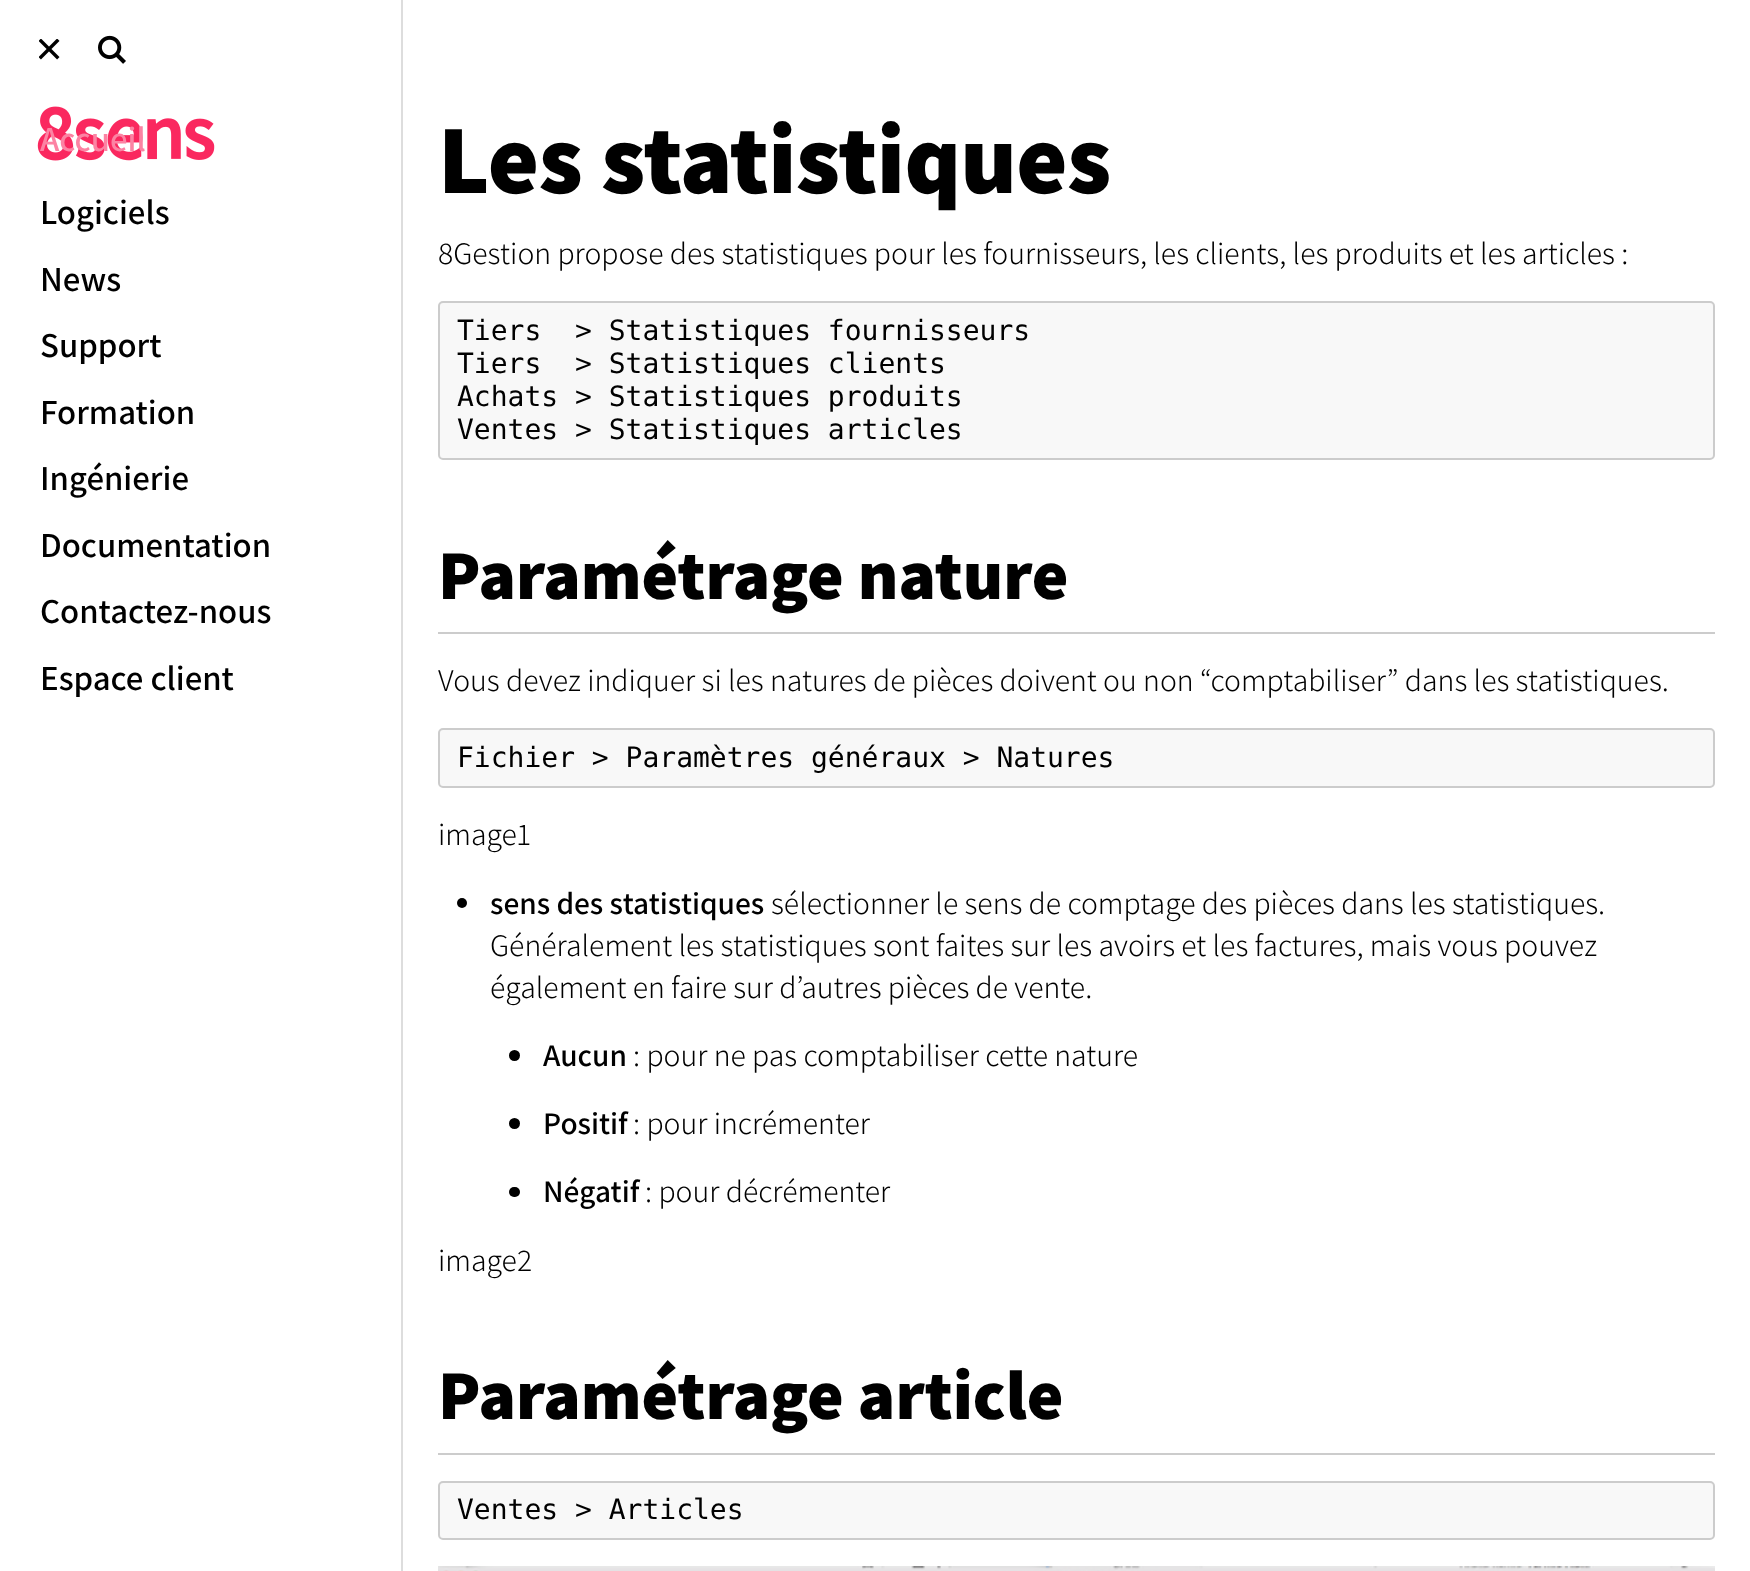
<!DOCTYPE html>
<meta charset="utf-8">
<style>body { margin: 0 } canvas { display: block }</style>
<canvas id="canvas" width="1750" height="1571"></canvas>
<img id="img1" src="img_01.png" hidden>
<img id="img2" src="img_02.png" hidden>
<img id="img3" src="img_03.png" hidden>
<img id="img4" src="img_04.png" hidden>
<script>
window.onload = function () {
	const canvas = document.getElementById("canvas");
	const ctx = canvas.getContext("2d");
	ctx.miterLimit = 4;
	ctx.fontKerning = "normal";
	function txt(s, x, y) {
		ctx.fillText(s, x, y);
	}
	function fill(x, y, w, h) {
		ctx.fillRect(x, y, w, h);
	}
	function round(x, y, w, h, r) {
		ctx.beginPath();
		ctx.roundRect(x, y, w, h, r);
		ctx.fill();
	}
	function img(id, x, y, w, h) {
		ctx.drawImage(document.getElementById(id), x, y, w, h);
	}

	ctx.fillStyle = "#FFFFFF";
	fill(0, 0, 1750, 1571);
	img("img1", 39, 39, 21, 21);
	img("img2", 98, 35, 28, 29);
	ctx.fillStyle = "#DDDDDD";
	fill(401, 0, 2, 1571);
	img("img3", 37, 106, 178, 55);
	ctx.fillStyle = "#F8F8F8";
	ctx.beginPath();
	ctx.roundRect(439, 302, 1275, 157, 4);
	ctx.fill();
	ctx.strokeStyle = "#CCCCCC";
	ctx.lineWidth = 2;
	ctx.stroke();
	ctx.fillStyle = "#CCCCCC";
	fill(438, 632, 1277, 2);
	ctx.fillStyle = "#F8F8F8";
	ctx.beginPath();
	ctx.roundRect(439, 729, 1275, 58, 4);
	ctx.fill();
	ctx.stroke();
	ctx.fillStyle = "#000000";
	ctx.beginPath();
	ctx.arc(462, 903, 5, 0, Math.PI * 2);
	ctx.fill();
	ctx.beginPath();
	ctx.arc(514.5, 1055.5, 5.5, 0, Math.PI * 2);
	ctx.fill();
	ctx.beginPath();
	ctx.arc(514.5, 1123.5, 5.5, 0, Math.PI * 2);
	ctx.fill();
	round(509, 1187, 11, 10, 5);
	ctx.fillStyle = "#CCCCCC";
	fill(438, 1453, 1277, 2);
	ctx.fillStyle = "#F8F8F8";
	ctx.beginPath();
	ctx.roundRect(439, 1482, 1275, 57, 4);
	ctx.fill();
	ctx.stroke();
	img("img4", 438, 1566, 1277, 5);
	ctx.font = "600 35px Assistant";
	ctx.fillStyle = "#FC83A3";
	txt("Accueil", 40, 151);
	ctx.fillStyle = "#000000";
	txt("Logiciels", 40, 224);
	txt("News", 40, 291);
	txt("Support", 40, 357);
	txt("Formation", 40, 424);
	txt("Ingénierie", 40, 490);
	txt("Documentation", 40, 557);
	txt("Contactez-nous", 40, 623);
	txt("Espace client", 40, 690);
	ctx.letterSpacing = "-0.75px";
	ctx.font = "800 98px Assistant";
	txt("Les statistiques", 438, 193);
	ctx.letterSpacing = "0px";
	ctx.font = "300 31.5px Assistant";
	txt("8Gestion propose des statistiques pour les fournisseurs, les clients, les produits et les articles :", 438, 264);
	ctx.font = "28px DejaVu Sans Mono";
	txt("Tiers  > Statistiques fournisseurs", 457, 340);
	txt("Tiers  > Statistiques clients", 457, 373);
	txt("Achats > Statistiques produits", 457, 406);
	txt("Ventes > Statistiques articles", 457, 439);
	ctx.font = "800 70px Assistant";
	txt("Paramétrage nature", 438, 599);
	ctx.font = "300 31.5px Assistant";
	txt("Vous devez indiquer si les natures de pièces doivent ou non “comptabiliser” dans les statistiques.", 438, 691);
	ctx.font = "28px DejaVu Sans Mono";
	txt("Fichier > Paramètres généraux > Natures", 457, 767);
	ctx.font = "300 31.5px Assistant";
	txt("image1", 438, 845);
	ctx.font = "600 31.5px Assistant";
	txt("sens des statistiques", 490, 914);
	ctx.font = "300 31.5px Assistant";
	txt("sélectionner le sens de comptage des pièces dans les statistiques.", 771, 914);
	txt("Généralement les statistiques sont faites sur les avoirs et les factures, mais vous pouvez", 490, 956);
	txt("également en faire sur d’autres pièces de vente.", 490, 998);
	ctx.font = "600 31.5px Assistant";
	txt("Aucun", 543, 1066);
	ctx.font = "300 31.5px Assistant";
	txt(": pour ne pas comptabiliser cette nature", 633, 1066);
	ctx.font = "600 31.5px Assistant";
	txt("Positif", 543, 1134);
	ctx.font = "300 31.5px Assistant";
	txt(": pour incrémenter", 633, 1134);
	ctx.font = "600 31.5px Assistant";
	txt("Négatif", 543, 1202);
	ctx.font = "300 31.5px Assistant";
	txt(": pour décrémenter", 645, 1202);
	txt("image2", 438, 1271);
	ctx.font = "800 70px Assistant";
	txt("Paramétrage article", 438, 1419);
	ctx.font = "28px DejaVu Sans Mono";
	txt("Ventes > Articles", 457, 1519);
};
</script>
